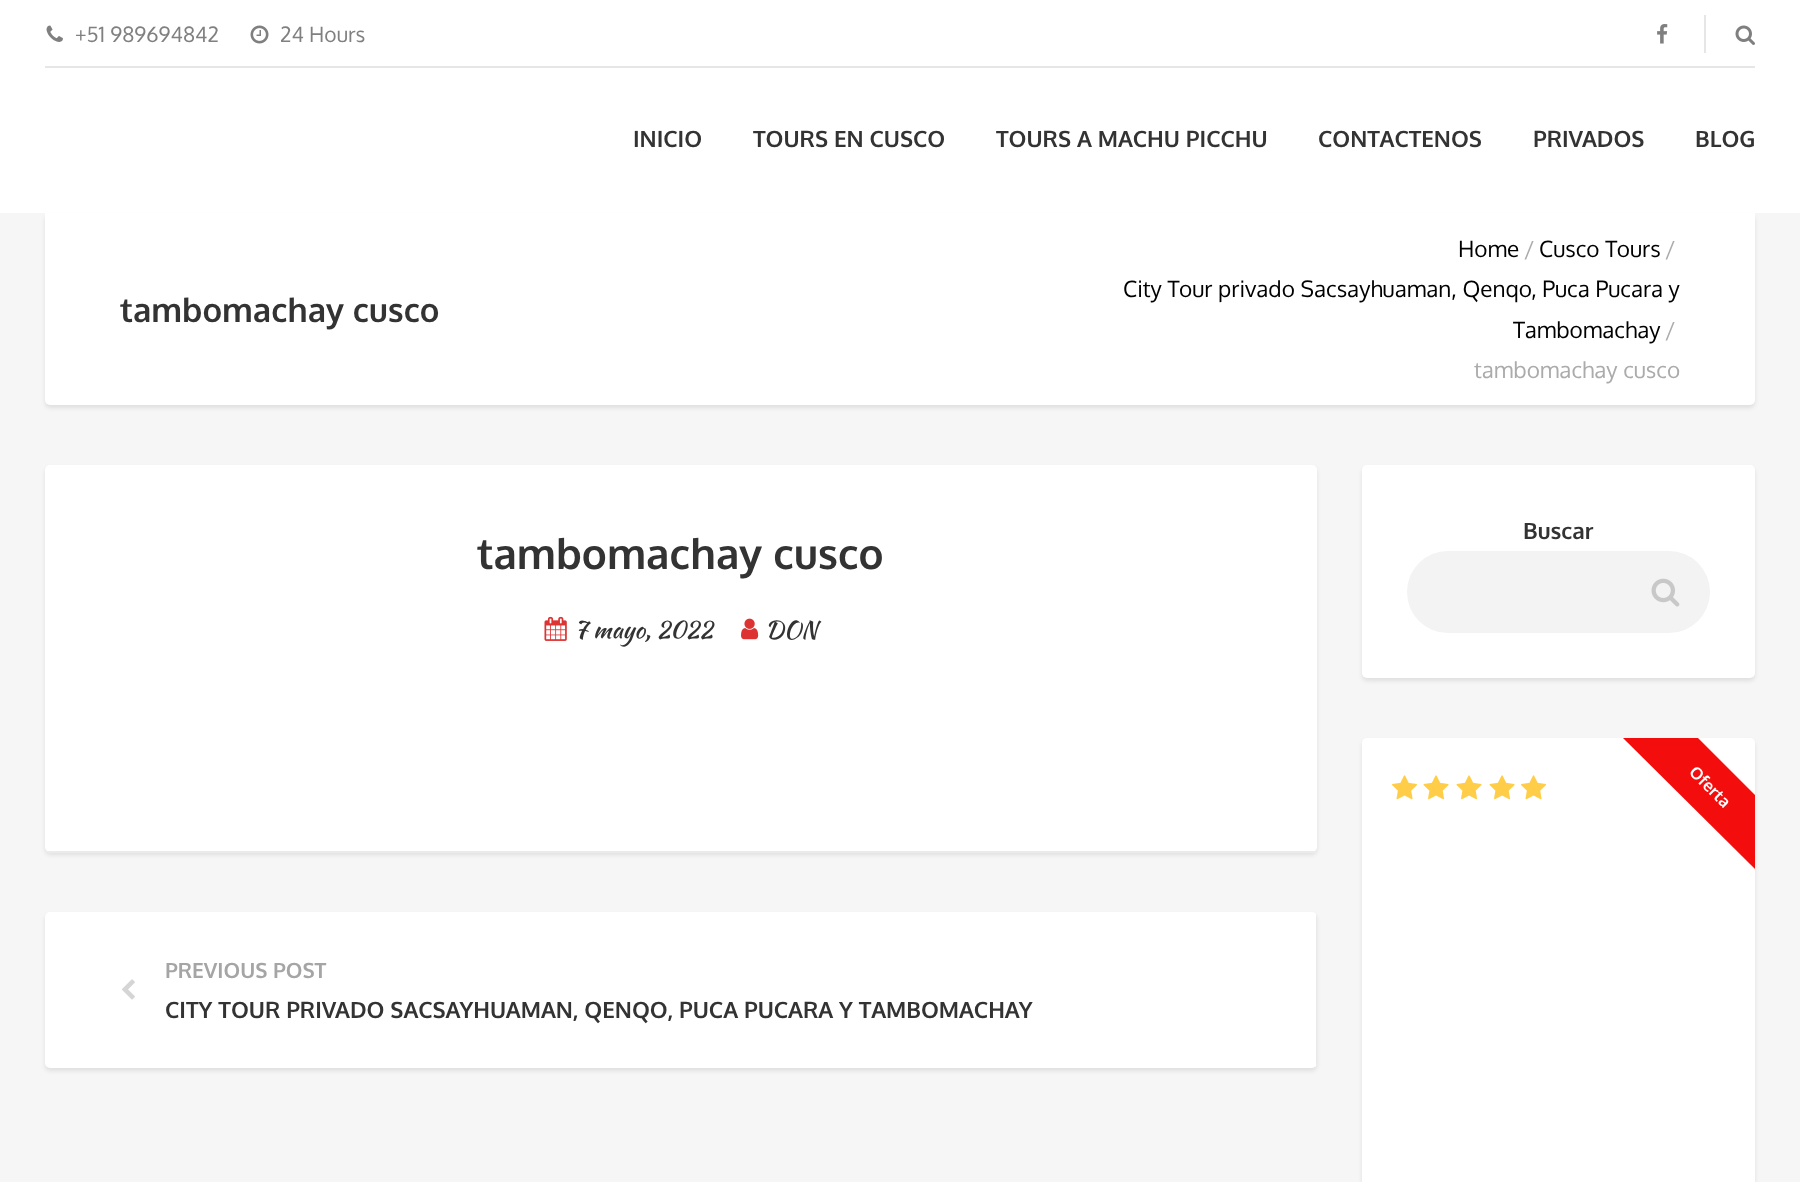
<!DOCTYPE html>
<meta charset="utf-8">
<style>body { margin: 0 } canvas { display: block }</style>
<canvas id="canvas" width="1800" height="1182"></canvas>
<img id="img1" src="img_01.png" hidden>
<img id="img2" src="img_02.png" hidden>
<img id="img3" src="img_03.png" hidden>
<img id="img4" src="img_04.png" hidden>
<img id="img5" src="img_05.png" hidden>
<img id="img6" src="img_06.png" hidden>
<img id="img7" src="img_07.png" hidden>
<img id="img8" src="img_08.png" hidden>
<img id="img9" src="img_09.png" hidden>
<img id="img10" src="img_10.png" hidden>
<script>
window.onload = function () {
	const canvas = document.getElementById("canvas");
	const ctx = canvas.getContext("2d");
	ctx.miterLimit = 4;
	ctx.fontKerning = "normal";
	function txt(s, x, y) {
		ctx.fillText(s, x, y);
	}
	function fill(x, y, w, h) {
		ctx.fillRect(x, y, w, h);
	}
	function round(x, y, w, h, r) {
		ctx.beginPath();
		ctx.roundRect(x, y, w, h, r);
		ctx.fill();
	}
	function img(id, x, y, w, h) {
		ctx.drawImage(document.getElementById(id), x, y, w, h);
	}

	ctx.fillStyle = "#F6F6F6";
	fill(0, 0, 1800, 1182);
	ctx.fillStyle = "#FFFFFF";
	fill(0, 0, 1800, 213);
	img("img1", 46, 25, 17, 17);
	img("img2", 250, 25, 19, 19);
	img("img3", 1657, 24, 11, 20);
	ctx.fillStyle = "#E6E6E6";
	fill(1704, 15, 2, 38);
	img("img4", 1735, 25, 20, 20);
	fill(45, 66, 1710, 2);
	ctx.fillStyle = "rgba(0, 0, 0, 0.09)";
	ctx.filter = "blur(2px)";
	ctx.beginPath();
	ctx.roundRect(45, 216, 1710, 192, 5);
	ctx.fill();
	ctx.filter = "none";
	ctx.fillStyle = "#FFFFFF";
	ctx.beginPath();
	ctx.roundRect(45, 213, 1710, 192, [0, 0, 5, 5]);
	ctx.fill();
	ctx.fillStyle = "rgba(0, 0, 0, 0.09)";
	ctx.filter = "blur(2px)";
	ctx.beginPath();
	ctx.roundRect(45, 468, 1272, 387, 5);
	ctx.fill();
	ctx.filter = "none";
	ctx.fillStyle = "#FFFFFF";
	round(45, 465, 1272, 387, 5);
	img("img5", 544, 616, 23, 25);
	img("img6", 741, 618, 18, 22);
	ctx.fillStyle = "#EBEBEB";
	fill(45, 851, 1272, 2);
	ctx.fillStyle = "rgba(0, 0, 0, 0.09)";
	ctx.filter = "blur(2px)";
	ctx.beginPath();
	ctx.roundRect(45, 915, 1272, 156, 5);
	ctx.fill();
	ctx.filter = "none";
	ctx.fillStyle = "#FFFFFF";
	round(45, 912, 1272, 156, 5);
	ctx.save();
	ctx.beginPath();
	ctx.roundRect(45, 912, 1272, 156, 5);
	ctx.clip();
	ctx.fillStyle = "#E9E9E9";
	fill(1316, 912, 1, 156);
	ctx.restore();
	img("img7", 122, 979, 13, 21);
	ctx.fillStyle = "rgba(0, 0, 0, 0.09)";
	ctx.filter = "blur(2px)";
	ctx.beginPath();
	ctx.roundRect(1362, 468, 393, 213, 5);
	ctx.fill();
	ctx.filter = "none";
	ctx.fillStyle = "#FFFFFF";
	round(1362, 465, 393, 213, 5);
	ctx.fillStyle = "#F3F3F3";
	round(1407, 551, 303, 82, 41);
	img("img8", 1651, 578, 29, 29);
	ctx.fillStyle = "rgba(0, 0, 0, 0.09)";
	ctx.filter = "blur(2px)";
	ctx.beginPath();
	ctx.roundRect(1362, 741, 393, 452, 5);
	ctx.fill();
	ctx.filter = "none";
	ctx.fillStyle = "#FFFFFF";
	round(1362, 738, 393, 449, 5);
	img("img9", 1392, 775, 25, 25);
	img("img10", 1423, 775, 26, 25);
	img("img10", 1456, 775, 26, 25);
	img("img10", 1489, 775, 26, 25);
	img("img9", 1521, 775, 25, 25);
	ctx.fillStyle = "#F30D0D";
	ctx.beginPath();
	ctx.moveTo(1755, 869);
	ctx.lineTo(1623, 738);
	ctx.lineTo(1698, 738);
	ctx.lineTo(1755, 795);
	ctx.closePath();
	ctx.fill();
	ctx.font = "21px Oxygen";
	ctx.fillStyle = "#808080";
	txt("+51 989694842", 75, 42);
	txt("24 Hours", 280, 42);
	ctx.font = "bold 22.5px Oxygen";
	ctx.fillStyle = "#333333";
	txt("INICIO", 633, 147);
	txt("TOURS EN CUSCO", 753, 147);
	txt("TOURS A MACHU PICCHU", 996, 147);
	txt("CONTACTENOS", 1318, 147);
	txt("PRIVADOS", 1533, 147);
	txt("BLOG", 1695, 147);
	ctx.font = "bold 33px Oxygen";
	txt("tambomachay cusco", 120, 322);
	ctx.font = "22.5px Oxygen";
	ctx.fillStyle = "#000000";
	txt("Home", 1458, 257);
	ctx.fillStyle = "#ABABAB";
	txt("/", 1524, 257);
	ctx.fillStyle = "#000000";
	txt("Cusco Tours", 1539, 257);
	ctx.fillStyle = "#ABABAB";
	txt("/", 1665, 257);
	ctx.fillStyle = "#000000";
	txt("City Tour privado Sacsayhuaman, Qenqo, Puca Pucara y", 1123, 297);
	txt("Tambomachay", 1513, 338);
	ctx.fillStyle = "#ABABAB";
	txt("/", 1665, 338);
	txt("tambomachay cusco", 1474, 378);
	ctx.font = "bold 42px Oxygen";
	ctx.fillStyle = "#333333";
	txt("tambomachay cusco", 477, 569);
	ctx.font = "24px Kaushan Script";
	txt("7 mayo, 2022", 574, 638);
	txt("DON", 765, 638);
	ctx.font = "bold 21px Oxygen";
	ctx.fillStyle = "#A5A5A5";
	txt("PREVIOUS POST", 165, 978);
	ctx.font = "bold 22.5px Oxygen";
	ctx.fillStyle = "#333333";
	txt("CITY TOUR PRIVADO SACSAYHUAMAN, QENQO, PUCA PUCARA Y TAMBOMACHAY", 165, 1018);
	txt("Buscar", 1523, 539);
	ctx.font = "bold 16.5px Oxygen";
	ctx.fillStyle = "#FEFEFE";
	ctx.save();
	ctx.translate(1688, 773);
	ctx.rotate(45 * Math.PI / 180);
	ctx.fillText("Oferta", 0, 0);
	ctx.restore();
};
</script>
